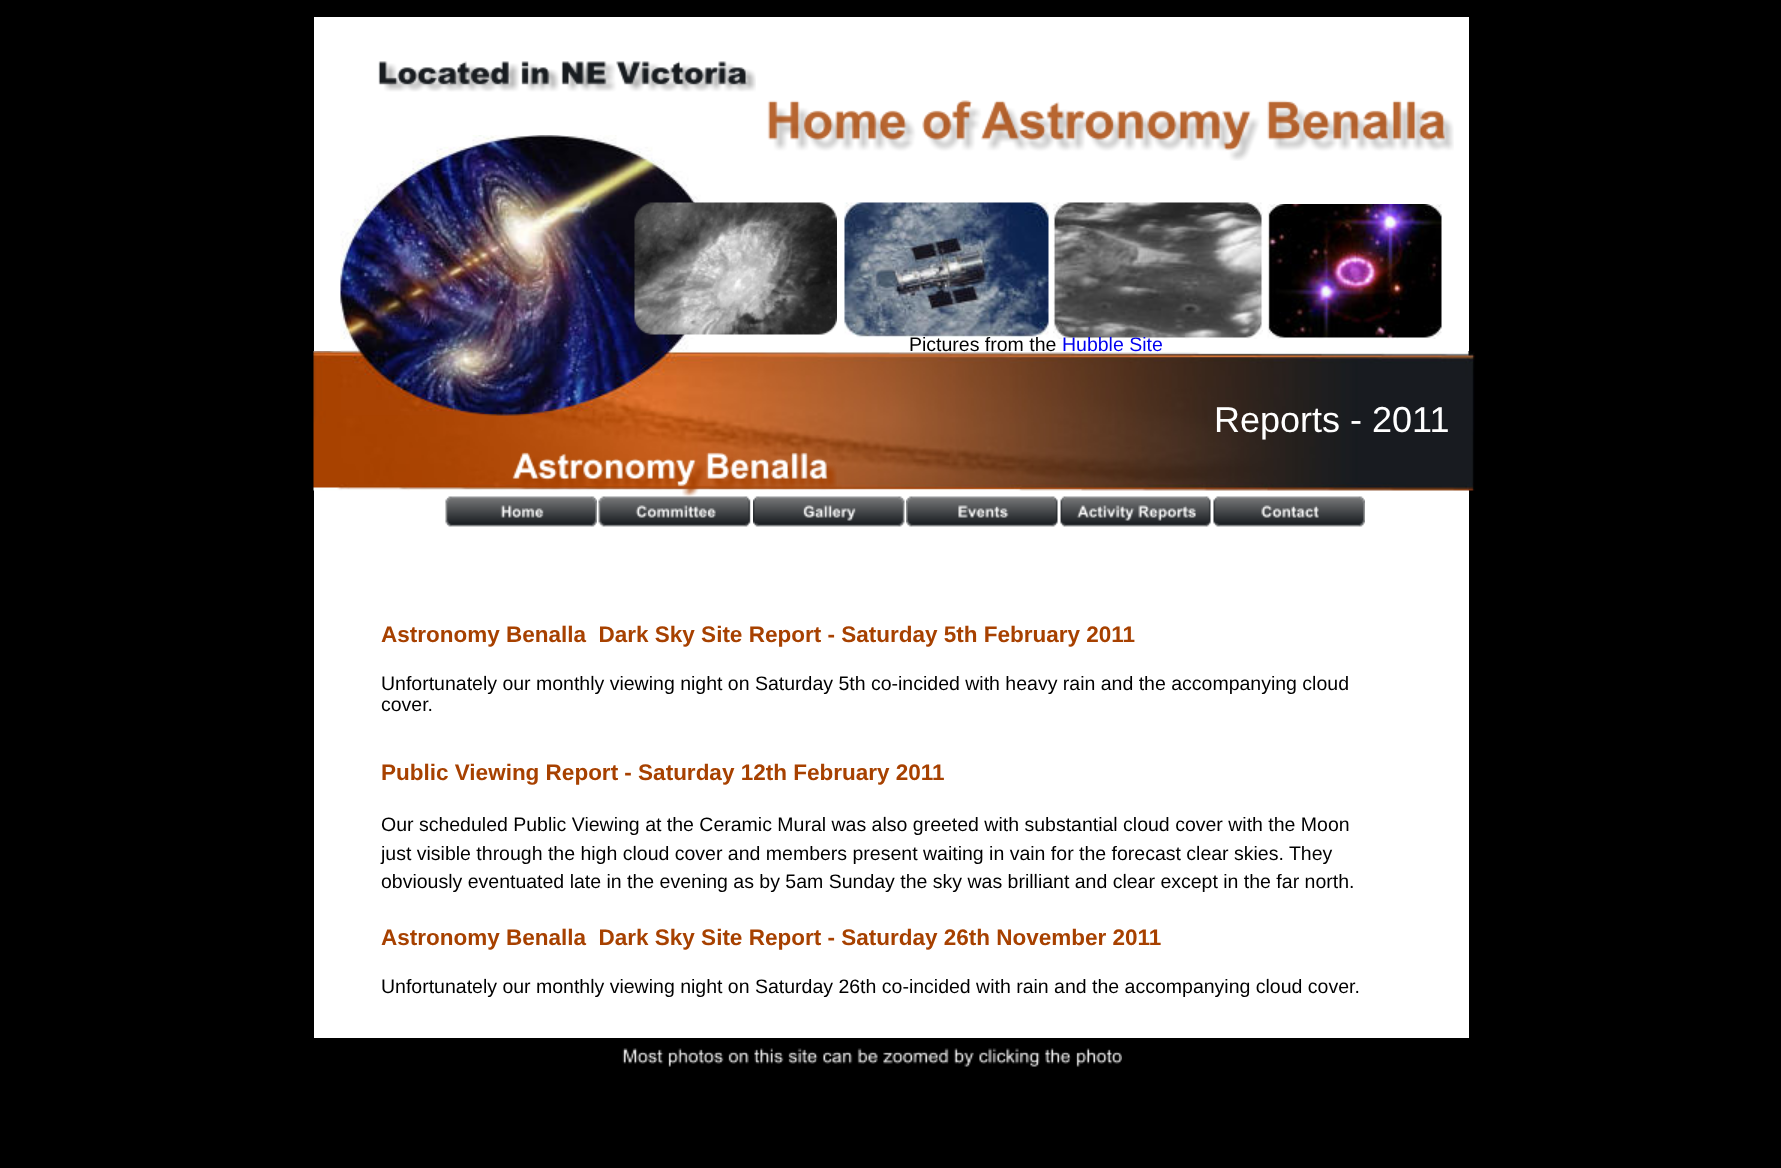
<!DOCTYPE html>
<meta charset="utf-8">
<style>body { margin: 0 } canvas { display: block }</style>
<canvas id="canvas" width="1781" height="1168"></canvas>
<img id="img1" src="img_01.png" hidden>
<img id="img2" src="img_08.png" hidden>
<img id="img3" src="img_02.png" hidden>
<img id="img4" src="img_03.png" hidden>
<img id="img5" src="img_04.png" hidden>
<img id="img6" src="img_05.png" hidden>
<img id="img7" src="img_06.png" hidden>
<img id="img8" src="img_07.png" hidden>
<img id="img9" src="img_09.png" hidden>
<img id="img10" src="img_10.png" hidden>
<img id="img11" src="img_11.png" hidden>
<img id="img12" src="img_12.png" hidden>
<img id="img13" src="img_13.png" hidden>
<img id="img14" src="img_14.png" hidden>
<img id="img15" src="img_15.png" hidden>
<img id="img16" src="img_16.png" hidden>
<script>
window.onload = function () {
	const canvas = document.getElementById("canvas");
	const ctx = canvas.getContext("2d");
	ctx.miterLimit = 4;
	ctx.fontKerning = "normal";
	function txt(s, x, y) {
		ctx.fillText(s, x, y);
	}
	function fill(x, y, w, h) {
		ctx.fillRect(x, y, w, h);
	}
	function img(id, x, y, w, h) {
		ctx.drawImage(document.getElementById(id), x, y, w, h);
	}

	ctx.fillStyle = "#000000";
	fill(0, 0, 1781, 1168);
	ctx.fillStyle = "#FFFFFF";
	fill(314, 17, 1155, 1021);
	img("img1", 378, 61, 378, 31);
	img("img2", 313, 351, 1162, 140);
	img("img3", 340, 135, 373, 281);
	img("img4", 634, 202, 203, 133);
	img("img5", 767, 100, 687, 61);
	img("img6", 844, 202, 205, 136);
	img("img7", 1053, 202, 210, 137);
	img("img8", 1267, 204, 175, 135);
	img("img9", 512, 452, 325, 45);
	img("img10", 445, 496, 152, 31);
	img("img11", 598, 496, 153, 31);
	img("img12", 753, 496, 152, 31);
	img("img13", 906, 496, 152, 31);
	img("img14", 1060, 496, 151, 31);
	img("img15", 1213, 496, 152, 31);
	img("img16", 622, 1048, 500, 19);
	ctx.font = "19.5px Liberation Sans";
	ctx.fillStyle = "#000000";
	txt("Pictures from the", 909, 351);
	ctx.fillStyle = "#0000EE";
	txt("Hubble Site", 1062, 351);
	ctx.font = "36px Liberation Sans";
	ctx.fillStyle = "#FFFFFF";
	txt("Reports - 2011", 1214, 432);
	ctx.font = "bold 22.5px Liberation Sans";
	ctx.fillStyle = "#A74100";
	txt("Astronomy Benalla  Dark Sky Site Report - Saturday 5th February 2011", 381, 642);
	ctx.font = "19.5px Liberation Sans";
	ctx.fillStyle = "#000000";
	txt("Unfortunately our monthly viewing night on Saturday 5th co-incided with heavy rain and the accompanying cloud", 381, 690);
	txt("cover.", 381, 711);
	ctx.font = "bold 22.5px Liberation Sans";
	ctx.fillStyle = "#A74100";
	txt("Public Viewing Report - Saturday 12th February 2011", 381, 780);
	ctx.font = "19.5px Liberation Sans";
	ctx.fillStyle = "#000000";
	txt("Our scheduled Public Viewing at the Ceramic Mural was also greeted with substantial cloud cover with the Moon", 381, 831);
	txt("just visible through the high cloud cover and members present waiting in vain for the forecast clear skies. They", 381, 860);
	txt("obviously eventuated late in the evening as by 5am Sunday the sky was brilliant and clear except in the far north.", 381, 888);
	ctx.font = "bold 22.5px Liberation Sans";
	ctx.fillStyle = "#A74100";
	txt("Astronomy Benalla  Dark Sky Site Report - Saturday 26th November 2011", 381, 945);
	ctx.font = "19.5px Liberation Sans";
	ctx.fillStyle = "#000000";
	txt("Unfortunately our monthly viewing night on Saturday 26th co-incided with rain and the accompanying cloud cover.", 381, 993);
};
</script>
